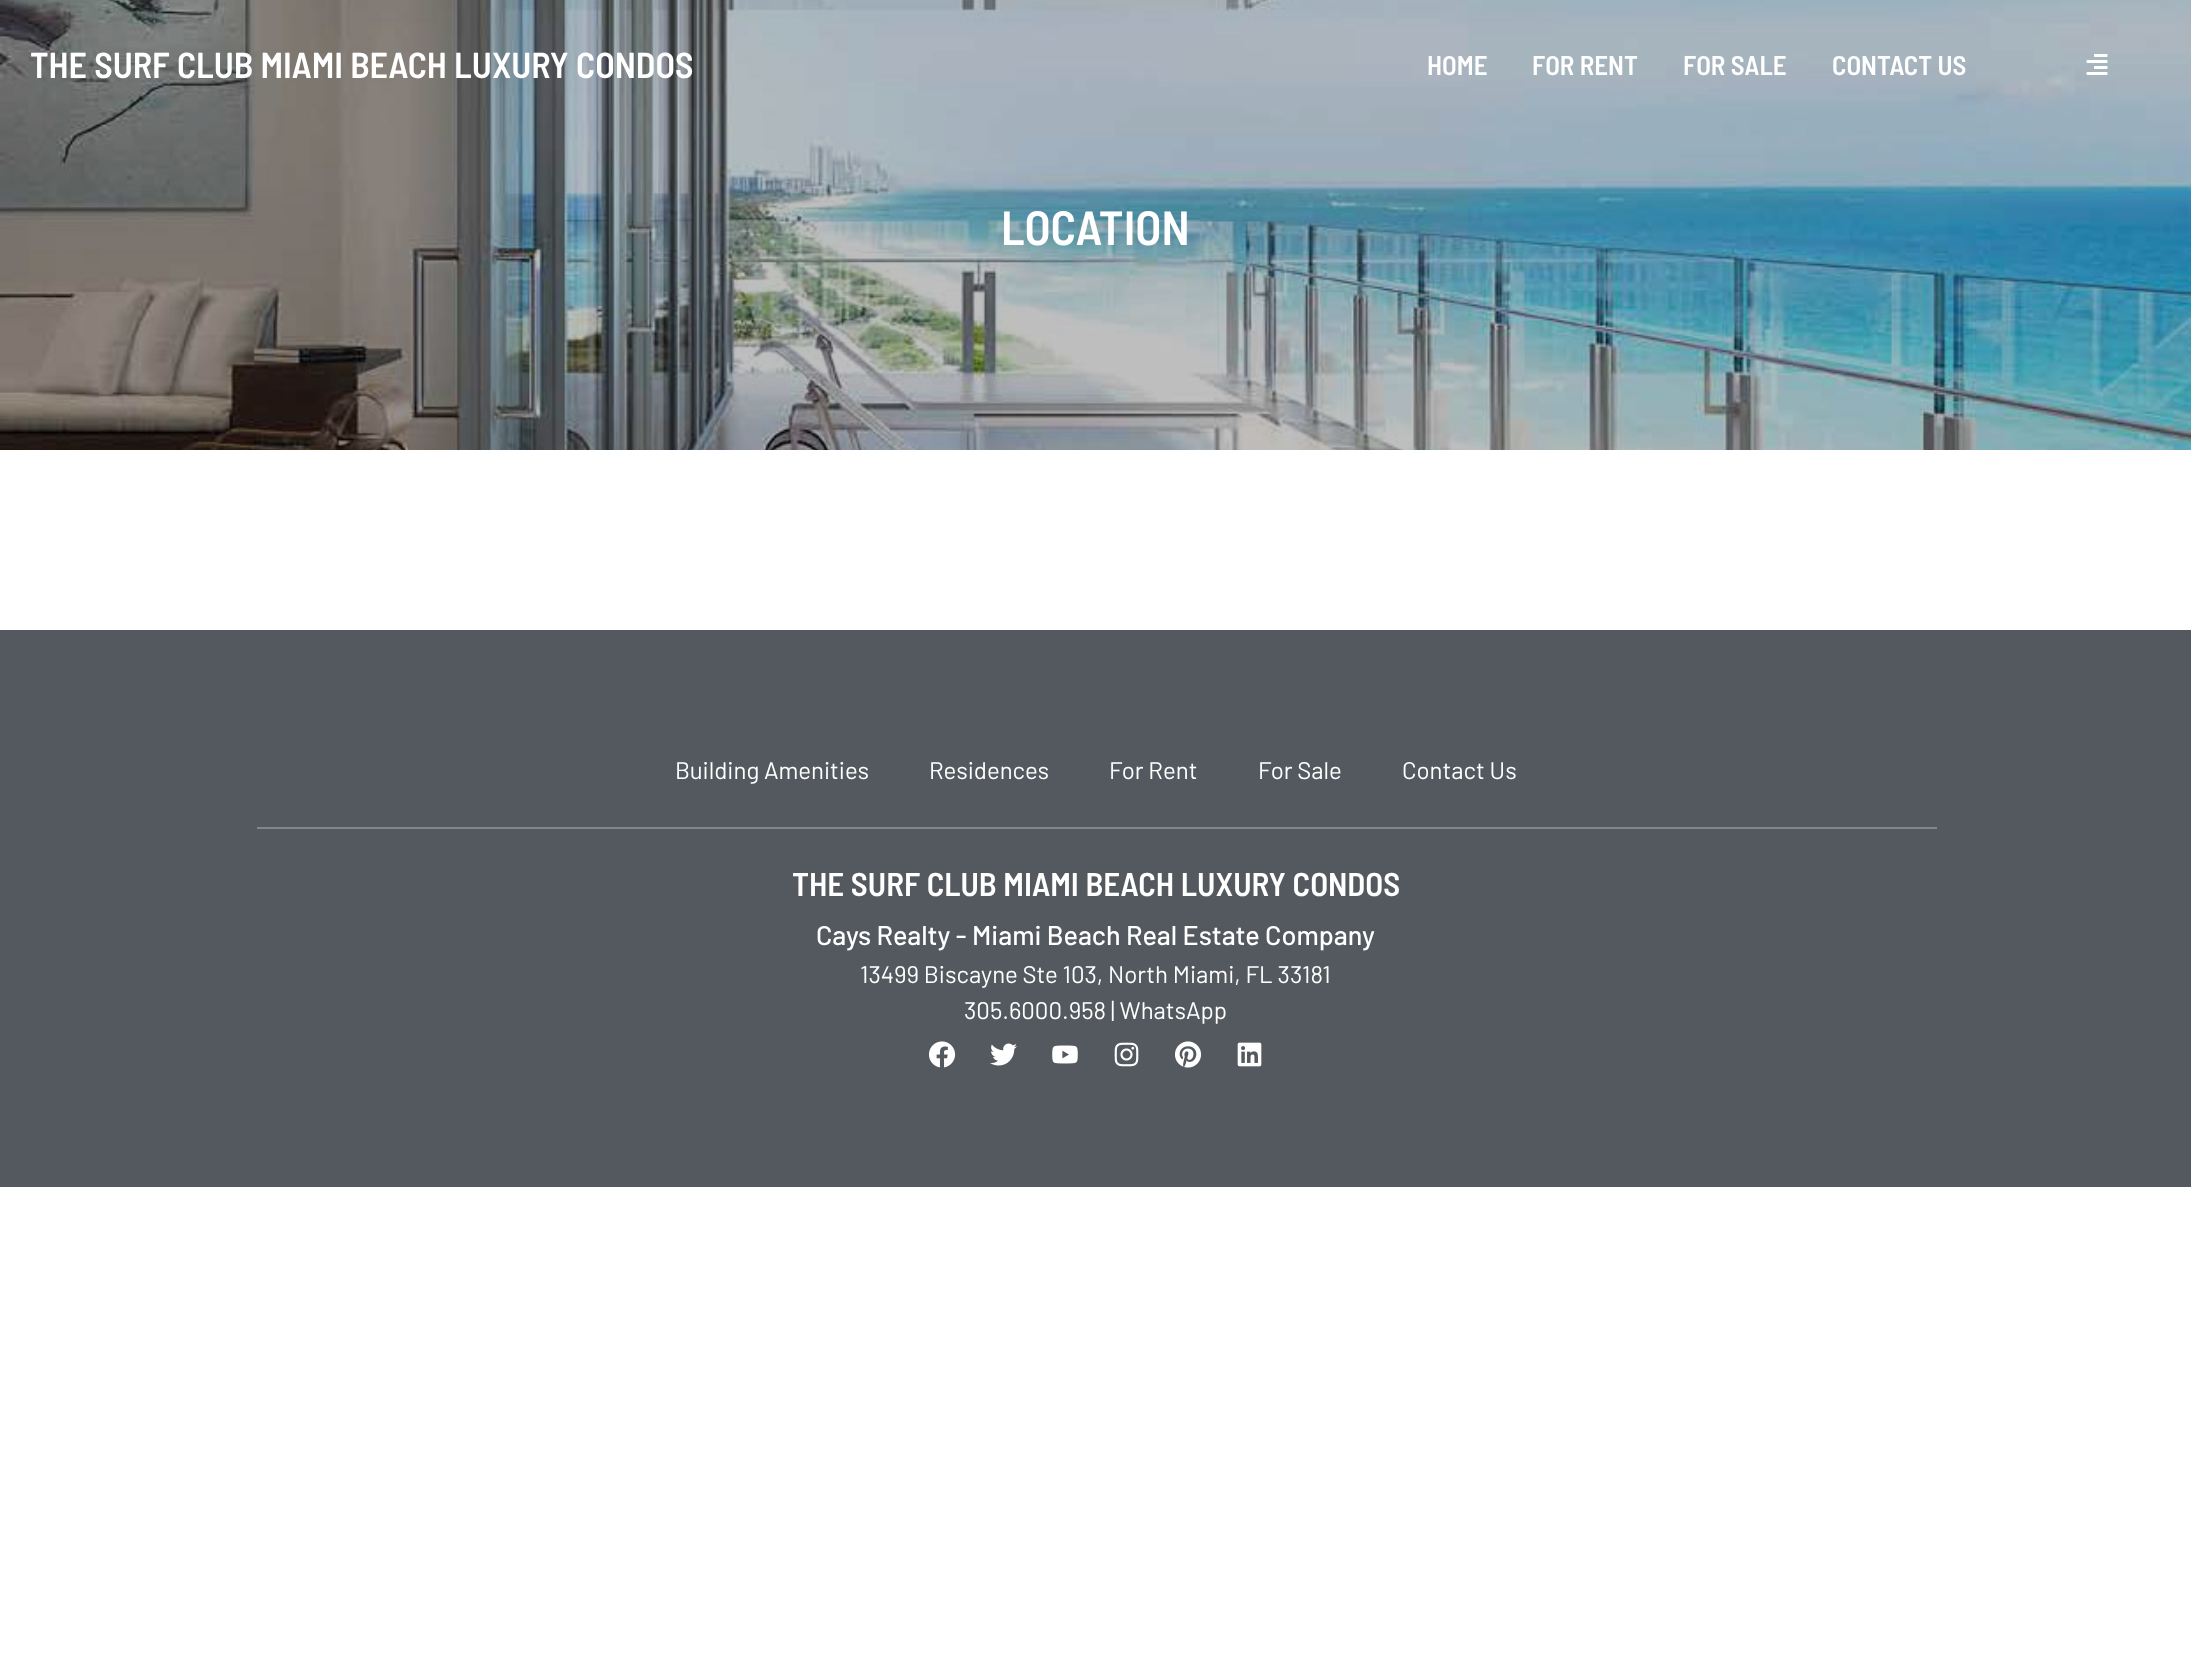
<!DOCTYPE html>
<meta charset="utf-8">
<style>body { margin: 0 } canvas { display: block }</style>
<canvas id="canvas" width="2191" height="1662"></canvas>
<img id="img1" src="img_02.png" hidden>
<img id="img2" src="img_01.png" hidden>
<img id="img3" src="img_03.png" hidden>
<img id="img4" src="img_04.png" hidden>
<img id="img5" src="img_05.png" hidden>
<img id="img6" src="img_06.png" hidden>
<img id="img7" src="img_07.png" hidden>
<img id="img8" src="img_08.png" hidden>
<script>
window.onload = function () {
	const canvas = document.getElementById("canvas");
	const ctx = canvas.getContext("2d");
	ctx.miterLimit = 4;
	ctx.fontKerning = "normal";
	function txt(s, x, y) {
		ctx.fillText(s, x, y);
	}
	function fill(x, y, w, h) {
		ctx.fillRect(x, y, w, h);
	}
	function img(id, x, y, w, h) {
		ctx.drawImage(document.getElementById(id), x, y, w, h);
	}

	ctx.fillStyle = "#FFFFFF";
	fill(0, 0, 2191, 1662);
	img("img1", 0, 0, 2191, 450);
	img("img2", 2086, 54, 22, 21);
	ctx.fillStyle = "#54595F";
	fill(0, 630, 2191, 557);
	ctx.fillStyle = "#82868A";
	fill(257, 827, 1680, 2);
	img("img3", 929, 1041, 27, 27);
	img("img4", 990, 1043, 27, 23);
	img("img5", 1052, 1045, 26, 19);
	img("img6", 1114, 1042, 25, 25);
	img("img7", 1175, 1041, 27, 27);
	img("img8", 1237, 1042, 25, 25);
	ctx.font = "600 36px Barlow Semi Condensed";
	ctx.fillStyle = "#FFFFFF";
	txt("THE SURF CLUB MIAMI BEACH LUXURY CONDOS", 30, 78);
	ctx.font = "600 27px Barlow Semi Condensed";
	txt("HOME", 1427, 75);
	txt("FOR RENT", 1532, 75);
	txt("FOR SALE", 1683, 75);
	txt("CONTACT US", 1832, 75);
	ctx.font = "600 48px Barlow Semi Condensed";
	txt("LOCATION", 1001, 245);
	ctx.font = "24px Barlow";
	txt("Building Amenities", 675, 779);
	txt("Residences", 929, 779);
	txt("For Rent", 1109, 779);
	txt("For Sale", 1258, 779);
	txt("Contact Us", 1402, 779);
	ctx.font = "600 33px Barlow Semi Condensed";
	txt("THE SURF CLUB MIAMI BEACH LUXURY CONDOS", 792, 896);
	ctx.font = "500 27px Barlow";
	txt("Cays Realty - Miami Beach Real Estate Company", 816, 945);
	ctx.font = "24px Barlow";
	txt("13499 Biscayne Ste 103, North Miami, FL 33181", 860, 983);
	txt("305.6000.958 | WhatsApp", 964, 1019);
};
</script>
